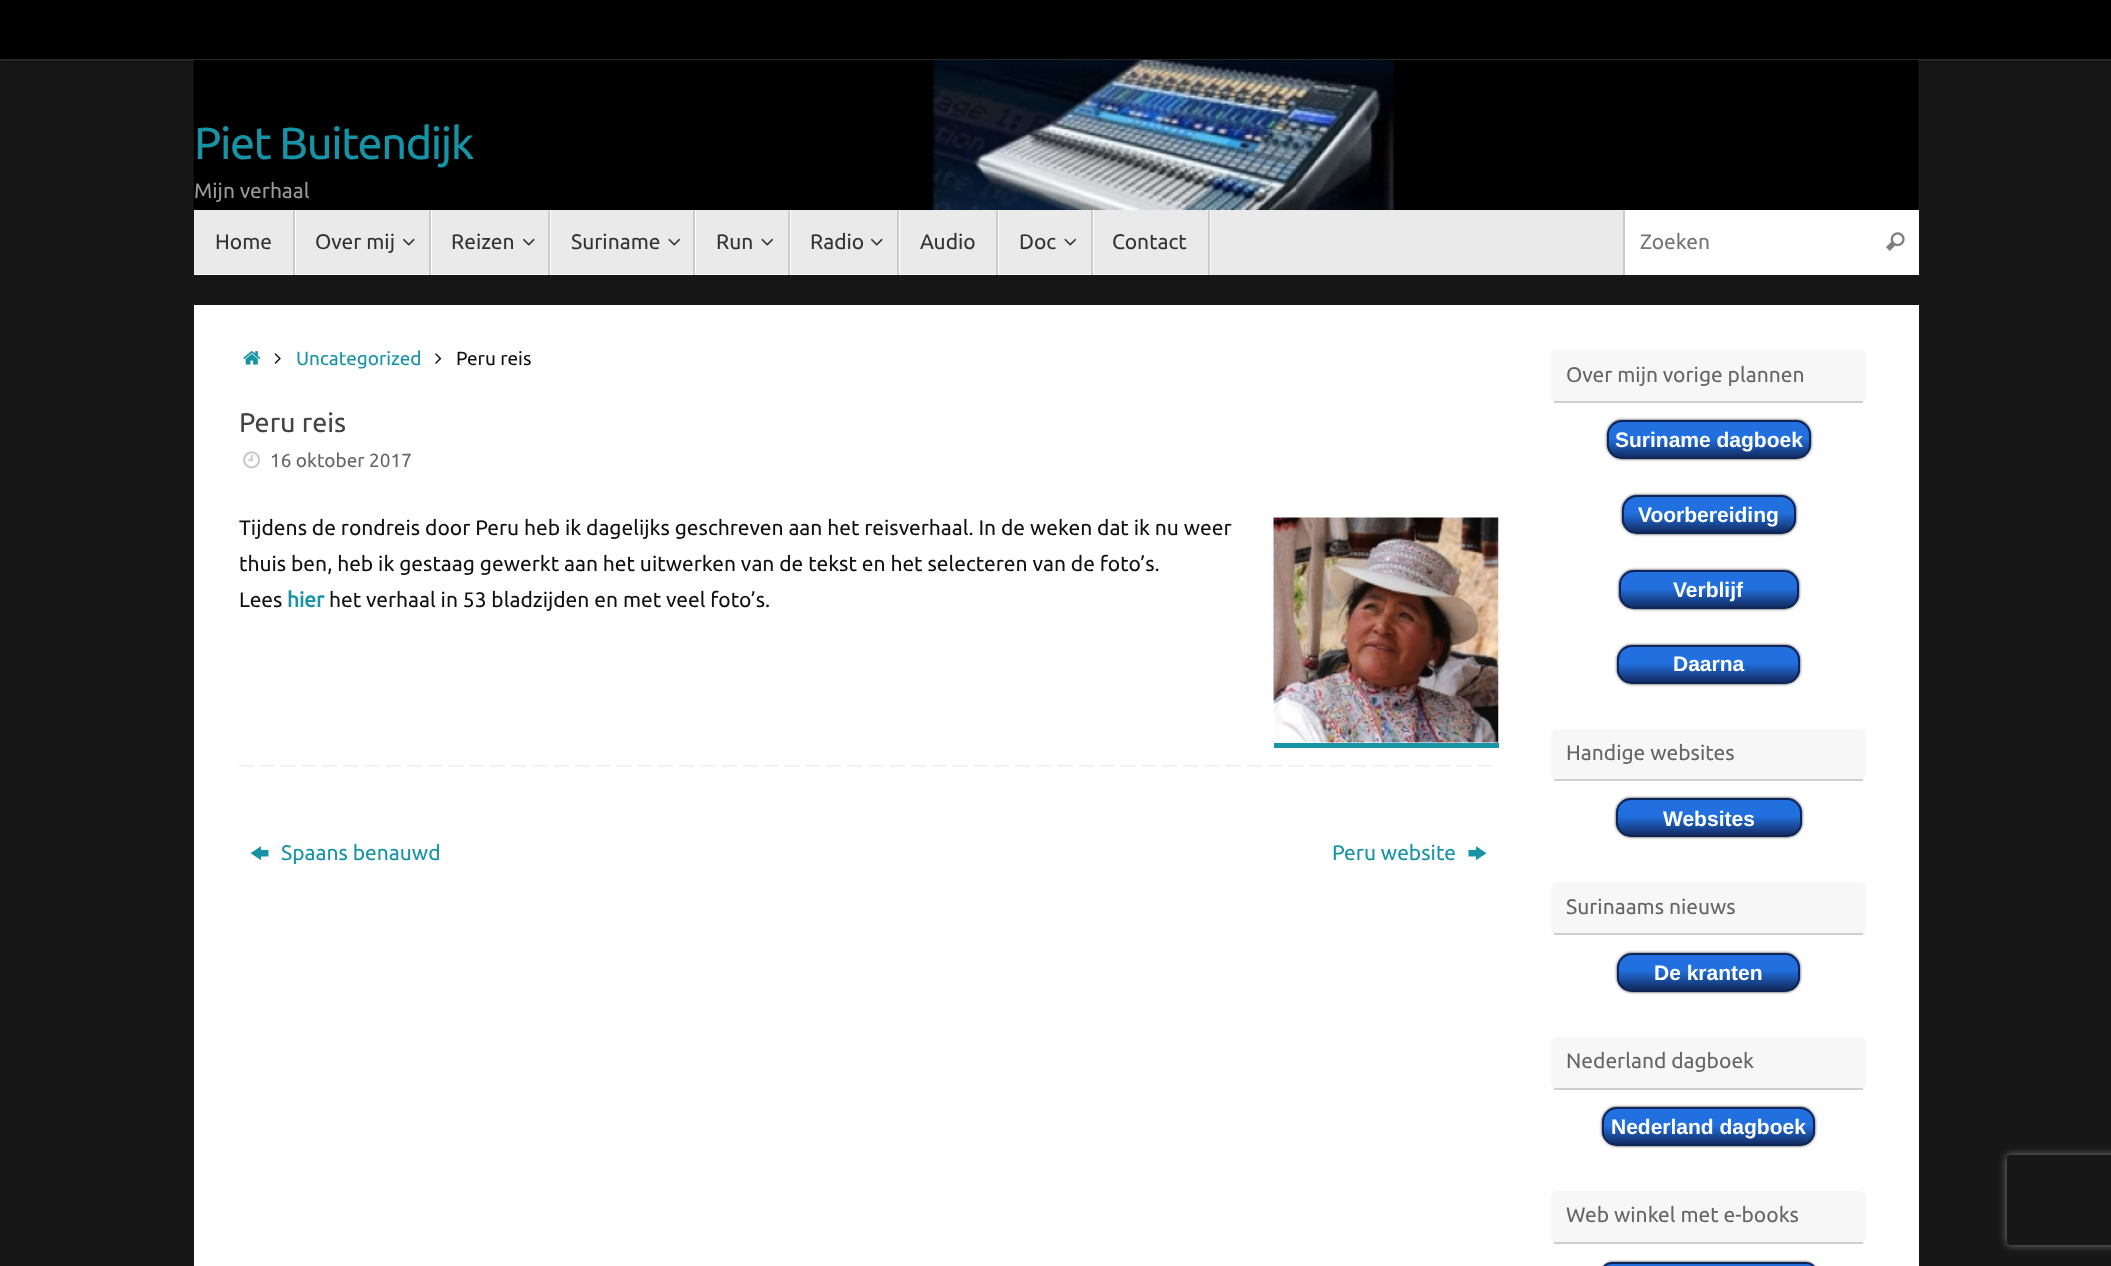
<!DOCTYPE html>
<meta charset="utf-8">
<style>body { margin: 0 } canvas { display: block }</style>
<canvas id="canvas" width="2111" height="1266"></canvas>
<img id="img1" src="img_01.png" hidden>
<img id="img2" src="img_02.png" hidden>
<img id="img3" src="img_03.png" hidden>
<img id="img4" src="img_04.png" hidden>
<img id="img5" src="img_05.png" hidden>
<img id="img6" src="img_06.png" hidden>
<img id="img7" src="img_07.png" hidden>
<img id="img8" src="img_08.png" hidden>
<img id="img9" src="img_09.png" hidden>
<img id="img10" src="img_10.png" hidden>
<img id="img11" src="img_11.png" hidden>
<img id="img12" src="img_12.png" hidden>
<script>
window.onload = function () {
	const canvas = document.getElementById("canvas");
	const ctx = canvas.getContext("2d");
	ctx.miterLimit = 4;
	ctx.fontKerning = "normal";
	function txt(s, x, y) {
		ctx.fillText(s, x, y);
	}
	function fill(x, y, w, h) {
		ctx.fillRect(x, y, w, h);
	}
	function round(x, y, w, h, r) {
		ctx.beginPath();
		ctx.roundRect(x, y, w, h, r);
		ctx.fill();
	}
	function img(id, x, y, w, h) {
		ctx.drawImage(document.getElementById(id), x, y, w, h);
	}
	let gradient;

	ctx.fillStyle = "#171717";
	fill(0, 0, 2111, 1266);
	ctx.fillStyle = "#000000";
	ctx.filter = "blur(2px)";
	ctx.beginPath();
	ctx.rect(5, 0, 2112, 60);
	ctx.fill();
	ctx.filter = "none";
	fill(0, 0, 2111, 59);
	ctx.fillStyle = "#282828";
	fill(0, 59, 2111, 2);
	img("img1", 193, 60, 1726, 150);
	ctx.fillStyle = "#EAEAEA";
	fill(194, 210, 1429, 65);
	ctx.fillStyle = "#FFFFFF";
	ctx.beginPath();
	ctx.moveTo(195, 274);
	ctx.lineTo(195, 275);
	ctx.lineTo(296, 275);
	ctx.lineTo(296, 210);
	ctx.lineTo(294, 210);
	ctx.lineTo(294, 274);
	ctx.closePath();
	ctx.fill();
	ctx.fillStyle = "#CCCCCC";
	fill(293, 210, 2, 65);
	ctx.fillStyle = "#FFFFFF";
	ctx.beginPath();
	ctx.moveTo(296, 274);
	ctx.lineTo(296, 275);
	ctx.lineTo(432, 275);
	ctx.lineTo(432, 210);
	ctx.lineTo(430, 210);
	ctx.lineTo(430, 274);
	ctx.closePath();
	ctx.fill();
	ctx.fillStyle = "#CCCCCC";
	fill(429, 210, 2, 65);
	img("img2", 403, 238, 12, 8);
	ctx.fillStyle = "#FFFFFF";
	ctx.beginPath();
	ctx.moveTo(432, 274);
	ctx.lineTo(432, 275);
	ctx.lineTo(551, 275);
	ctx.lineTo(551, 210);
	ctx.lineTo(549, 210);
	ctx.lineTo(549, 274);
	ctx.closePath();
	ctx.fill();
	ctx.fillStyle = "#CCCCCC";
	fill(548, 210, 2, 65);
	img("img2", 523, 238, 12, 8);
	ctx.fillStyle = "#FFFFFF";
	ctx.beginPath();
	ctx.moveTo(551, 274);
	ctx.lineTo(551, 275);
	ctx.lineTo(696, 275);
	ctx.lineTo(696, 210);
	ctx.lineTo(694, 210);
	ctx.lineTo(694, 274);
	ctx.closePath();
	ctx.fill();
	ctx.fillStyle = "#CCCCCC";
	fill(693, 210, 2, 65);
	img("img3", 668, 238, 13, 8);
	ctx.fillStyle = "#FFFFFF";
	ctx.beginPath();
	ctx.moveTo(696, 274);
	ctx.lineTo(696, 275);
	ctx.lineTo(791, 275);
	ctx.lineTo(791, 210);
	ctx.lineTo(789, 210);
	ctx.lineTo(789, 274);
	ctx.closePath();
	ctx.fill();
	ctx.fillStyle = "#CCCCCC";
	fill(788, 210, 2, 65);
	img("img3", 761, 238, 13, 8);
	ctx.fillStyle = "#FFFFFF";
	ctx.beginPath();
	ctx.moveTo(791, 274);
	ctx.lineTo(791, 275);
	ctx.lineTo(900, 275);
	ctx.lineTo(900, 210);
	ctx.lineTo(898, 210);
	ctx.lineTo(898, 274);
	ctx.closePath();
	ctx.fill();
	ctx.fillStyle = "#CCCCCC";
	fill(897, 210, 2, 65);
	img("img2", 871, 238, 12, 8);
	ctx.fillStyle = "#FFFFFF";
	ctx.beginPath();
	ctx.moveTo(900, 274);
	ctx.lineTo(900, 275);
	ctx.lineTo(999, 275);
	ctx.lineTo(999, 210);
	ctx.lineTo(998, 210);
	ctx.lineTo(998, 274);
	ctx.closePath();
	ctx.fill();
	ctx.fillStyle = "#CCCCCC";
	fill(996, 210, 2, 65);
	ctx.fillStyle = "#FFFFFF";
	ctx.beginPath();
	ctx.moveTo(999, 274);
	ctx.lineTo(999, 275);
	ctx.lineTo(1094, 275);
	ctx.lineTo(1094, 210);
	ctx.lineTo(1092, 210);
	ctx.lineTo(1092, 274);
	ctx.closePath();
	ctx.fill();
	ctx.fillStyle = "#CCCCCC";
	fill(1091, 210, 2, 65);
	img("img3", 1064, 238, 13, 8);
	ctx.fillStyle = "#FFFFFF";
	ctx.beginPath();
	ctx.moveTo(1094, 274);
	ctx.lineTo(1094, 275);
	ctx.lineTo(1211, 275);
	ctx.lineTo(1211, 210);
	ctx.lineTo(1209, 210);
	ctx.lineTo(1209, 274);
	ctx.closePath();
	ctx.fill();
	ctx.fillStyle = "#CCCCCC";
	fill(1208, 210, 2, 65);
	ctx.fillStyle = "#FFFFFF";
	fill(1625, 210, 294, 65);
	ctx.fillStyle = "#CCCCCC";
	fill(1623, 210, 2, 65);
	img("img4", 1886, 232, 19, 19);
	ctx.fillStyle = "#FFFFFF";
	fill(194, 305, 1725, 961);
	img("img5", 243, 351, 18, 14);
	img("img6", 274, 353, 7, 11);
	img("img7", 435, 353, 7, 11);
	img("img8", 243, 451, 18, 18);
	ctx.fillStyle = "#1894A6";
	fill(1274, 743, 225, 5);
	img("img9", 1273, 517, 226, 226);
	img("img10", 239, 765, 1254, 2);
	img("img11", 250, 846, 19, 15);
	img("img12", 1468, 846, 19, 15);
	ctx.fillStyle = "#F7F7F7";
	round(1551, 350, 315, 52, 6);
	ctx.fillStyle = "#CFCFCF";
	fill(1554, 401, 309, 2);
	ctx.fillStyle = "#333333";
	ctx.filter = "blur(1.5px)";
	ctx.beginPath();
	ctx.roundRect(1607, 420, 204, 39, 15);
	ctx.fill();
	ctx.filter = "none";
	ctx.save();
	ctx.beginPath();
	ctx.roundRect(1607, 420, 204, 39, 15);
	ctx.clip();
	gradient = ctx.createLinearGradient(1709, 422, 1709, 458);
	gradient.addColorStop(0.45, "#2270DF");
	gradient.addColorStop(1, "#12295D");
	ctx.fillStyle = gradient;
	fill(1607, 422, 204, 36);
	ctx.restore();
	ctx.beginPath();
	ctx.roundRect(1608, 421, 202, 37, 14);
	ctx.strokeStyle = "#0F2557";
	ctx.lineWidth = 2;
	ctx.stroke();
	ctx.filter = "blur(1.5px)";
	ctx.beginPath();
	ctx.roundRect(1622, 495, 174, 39, 15);
	ctx.fill();
	ctx.filter = "none";
	ctx.save();
	ctx.beginPath();
	ctx.roundRect(1622, 495, 174, 39, 15);
	ctx.clip();
	gradient = ctx.createLinearGradient(1709, 497, 1709, 533);
	gradient.addColorStop(0.45, "#2270DF");
	gradient.addColorStop(1, "#12295D");
	ctx.fillStyle = gradient;
	fill(1622, 497, 174, 36);
	ctx.restore();
	ctx.beginPath();
	ctx.roundRect(1623, 496, 172, 37, 14);
	ctx.stroke();
	ctx.filter = "blur(1.5px)";
	ctx.beginPath();
	ctx.roundRect(1619, 570, 180, 39, 15);
	ctx.fill();
	ctx.filter = "none";
	ctx.save();
	ctx.beginPath();
	ctx.roundRect(1619, 570, 180, 39, 15);
	ctx.clip();
	gradient = ctx.createLinearGradient(1709, 572, 1709, 608);
	gradient.addColorStop(0.45, "#2270DF");
	gradient.addColorStop(1, "#12295D");
	ctx.fillStyle = gradient;
	fill(1619, 572, 180, 36);
	ctx.restore();
	ctx.beginPath();
	ctx.roundRect(1620, 571, 178, 37, 14);
	ctx.stroke();
	ctx.filter = "blur(1.5px)";
	ctx.beginPath();
	ctx.roundRect(1617, 645, 183, 39, 15);
	ctx.fill();
	ctx.filter = "none";
	ctx.save();
	ctx.beginPath();
	ctx.roundRect(1617, 645, 183, 39, 15);
	ctx.clip();
	gradient = ctx.createLinearGradient(1709, 647, 1709, 683);
	gradient.addColorStop(0.45, "#2270DF");
	gradient.addColorStop(1, "#12295D");
	ctx.fillStyle = gradient;
	fill(1617, 647, 183, 36);
	ctx.restore();
	ctx.beginPath();
	ctx.roundRect(1618, 646, 181, 37, 14);
	ctx.stroke();
	ctx.fillStyle = "#F7F7F7";
	round(1551, 729, 315, 51, 6);
	ctx.fillStyle = "#CFCFCF";
	fill(1554, 779, 309, 2);
	ctx.fillStyle = "#333333";
	ctx.filter = "blur(1.5px)";
	ctx.beginPath();
	ctx.roundRect(1616, 798, 186, 39, 15);
	ctx.fill();
	ctx.filter = "none";
	ctx.save();
	ctx.beginPath();
	ctx.roundRect(1616, 798, 186, 39, 15);
	ctx.clip();
	gradient = ctx.createLinearGradient(1709, 800, 1709, 836);
	gradient.addColorStop(0.45, "#2270DF");
	gradient.addColorStop(1, "#12295D");
	ctx.fillStyle = gradient;
	fill(1616, 800, 186, 36);
	ctx.restore();
	ctx.beginPath();
	ctx.roundRect(1617, 799, 184, 37, 14);
	ctx.stroke();
	ctx.fillStyle = "#F7F7F7";
	round(1551, 882, 315, 53, 6);
	ctx.fillStyle = "#CFCFCF";
	fill(1554, 933, 309, 2);
	ctx.fillStyle = "#333333";
	ctx.filter = "blur(1.5px)";
	ctx.beginPath();
	ctx.roundRect(1617, 953, 183, 39, 15);
	ctx.fill();
	ctx.filter = "none";
	ctx.save();
	ctx.beginPath();
	ctx.roundRect(1617, 953, 183, 39, 15);
	ctx.clip();
	gradient = ctx.createLinearGradient(1709, 954, 1709, 990);
	gradient.addColorStop(0.45, "#2270DF");
	gradient.addColorStop(1, "#12295D");
	ctx.fillStyle = gradient;
	fill(1617, 954, 183, 36);
	ctx.restore();
	ctx.beginPath();
	ctx.roundRect(1618, 954, 181, 37, 14);
	ctx.stroke();
	ctx.fillStyle = "#F7F7F7";
	round(1551, 1037, 315, 52, 6);
	ctx.fillStyle = "#CFCFCF";
	fill(1554, 1088, 309, 2);
	ctx.fillStyle = "#333333";
	ctx.filter = "blur(1.5px)";
	ctx.beginPath();
	ctx.roundRect(1602, 1107, 213, 39, 15);
	ctx.fill();
	ctx.filter = "none";
	ctx.save();
	ctx.beginPath();
	ctx.roundRect(1602, 1107, 213, 39, 15);
	ctx.clip();
	gradient = ctx.createLinearGradient(1709, 1109, 1709, 1145);
	gradient.addColorStop(0.45, "#2270DF");
	gradient.addColorStop(1, "#12295D");
	ctx.fillStyle = gradient;
	fill(1602, 1109, 213, 36);
	ctx.restore();
	ctx.beginPath();
	ctx.roundRect(1603, 1108, 211, 37, 14);
	ctx.stroke();
	ctx.fillStyle = "#F7F7F7";
	round(1551, 1191, 315, 53, 6);
	ctx.fillStyle = "#CFCFCF";
	fill(1554, 1242, 309, 2);
	ctx.fillStyle = "#333333";
	ctx.filter = "blur(1.5px)";
	ctx.beginPath();
	ctx.roundRect(1601, 1262, 216, 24, 15);
	ctx.fill();
	ctx.filter = "none";
	ctx.save();
	ctx.beginPath();
	ctx.roundRect(1601, 1262, 216, 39, 15);
	ctx.clip();
	gradient = ctx.createLinearGradient(1709, 1263, 1709, 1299);
	gradient.addColorStop(0.45, "#2270DF");
	gradient.addColorStop(1, "#12295D");
	ctx.fillStyle = gradient;
	fill(1601, 1263, 216, 3);
	ctx.restore();
	ctx.beginPath();
	ctx.roundRect(1602, 1263, 214, 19, 14);
	ctx.stroke();
	ctx.save();
	ctx.beginPath();
	ctx.moveTo(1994, 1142);
	ctx.lineTo(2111, 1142);
	ctx.lineTo(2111, 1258);
	ctx.lineTo(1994, 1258);
	ctx.closePath();
	ctx.moveTo(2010, 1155);
	ctx.lineTo(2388, 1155);
	ctx.bezierCurveTo(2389.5, 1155, 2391, 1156.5, 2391, 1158);
	ctx.lineTo(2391, 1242);
	ctx.bezierCurveTo(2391, 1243.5, 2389.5, 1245, 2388, 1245);
	ctx.lineTo(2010, 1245);
	ctx.bezierCurveTo(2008.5, 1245, 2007, 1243.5, 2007, 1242);
	ctx.lineTo(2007, 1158);
	ctx.bezierCurveTo(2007, 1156.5, 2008.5, 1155, 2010, 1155);
	ctx.closePath();
	ctx.clip("evenodd");
	ctx.fillStyle = "#808080";
	ctx.filter = "blur(4px)";
	ctx.beginPath();
	ctx.roundRect(2007, 1155, 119, 90, 3);
	ctx.fill();
	ctx.filter = "none";
	ctx.restore();
	ctx.letterSpacing = "-1.4px";
	ctx.font = "45px Ubuntu";
	ctx.fillStyle = "#1693A5";
	txt("Piet Buitendijk", 194, 159);
	ctx.letterSpacing = "0px";
	ctx.font = "21px Ubuntu";
	ctx.fillStyle = "#999999";
	txt("Mijn verhaal", 194, 198);
	ctx.fillStyle = "#333333";
	txt("Home", 215, 249);
	txt("Over mij", 315, 249);
	txt("Reizen", 451, 249);
	txt("Suriname", 571, 249);
	txt("Run", 716, 249);
	txt("Radio", 810, 249);
	txt("Audio", 920, 249);
	txt("Doc", 1019, 249);
	txt("Contact", 1112, 249);
	ctx.fillStyle = "#757575";
	txt("Zoeken", 1640, 249);
	ctx.font = "19px Ubuntu";
	ctx.fillStyle = "#1693A5";
	txt("Uncategorized", 296, 365);
	ctx.fillStyle = "#111111";
	txt("Peru reis", 456, 365);
	ctx.font = "27px Ubuntu";
	ctx.fillStyle = "#444444";
	txt("Peru reis", 239, 432);
	ctx.font = "19px Ubuntu";
	ctx.fillStyle = "#666666";
	txt("16 oktober 2017", 270, 467);
	ctx.font = "21px Ubuntu";
	ctx.fillStyle = "#111111";
	txt("Tijdens de rondreis door Peru heb ik dagelijks geschreven aan het reisverhaal. In de weken dat ik nu weer", 239, 535);
	txt("thuis ben, heb ik gestaag gewerkt aan het uitwerken van de tekst en het selecteren van de foto’s.", 239, 571);
	txt("Lees", 239, 607);
	ctx.font = "bold 21px Ubuntu";
	ctx.fillStyle = "#1693A5";
	txt("hier", 287, 607);
	ctx.font = "21px Ubuntu";
	ctx.fillStyle = "#111111";
	txt("het verhaal in 53 bladzijden en met veel foto’s.", 329, 607);
	ctx.fillStyle = "#1693A5";
	txt("Spaans benauwd", 281, 860);
	txt("Peru website", 1332, 860);
	ctx.fillStyle = "#666666";
	txt("Over mijn vorige plannen", 1566, 382);
	ctx.font = "bold 21px Liberation Sans";
	ctx.fillStyle = "#FFFFFF";
	txt("Suriname dagboek", 1615, 447);
	txt("Voorbereiding", 1638, 522);
	txt("Verblijf", 1673, 597);
	txt("Daarna", 1673, 671);
	ctx.font = "21px Ubuntu";
	ctx.fillStyle = "#666666";
	txt("Handige websites", 1566, 760);
	ctx.font = "bold 21px Liberation Sans";
	ctx.fillStyle = "#FFFFFF";
	txt("Websites", 1663, 826);
	ctx.font = "21px Ubuntu";
	ctx.fillStyle = "#666666";
	txt("Surinaams nieuws", 1566, 914);
	ctx.font = "bold 21px Liberation Sans";
	ctx.fillStyle = "#FFFFFF";
	txt("De kranten", 1654, 980);
	ctx.font = "21px Ubuntu";
	ctx.fillStyle = "#666666";
	txt("Nederland dagboek", 1566, 1068);
	ctx.font = "bold 21px Liberation Sans";
	ctx.fillStyle = "#FFFFFF";
	txt("Nederland dagboek", 1611, 1134);
	ctx.font = "21px Ubuntu";
	ctx.fillStyle = "#666666";
	txt("Web winkel met e-books", 1566, 1222);
};
</script>
